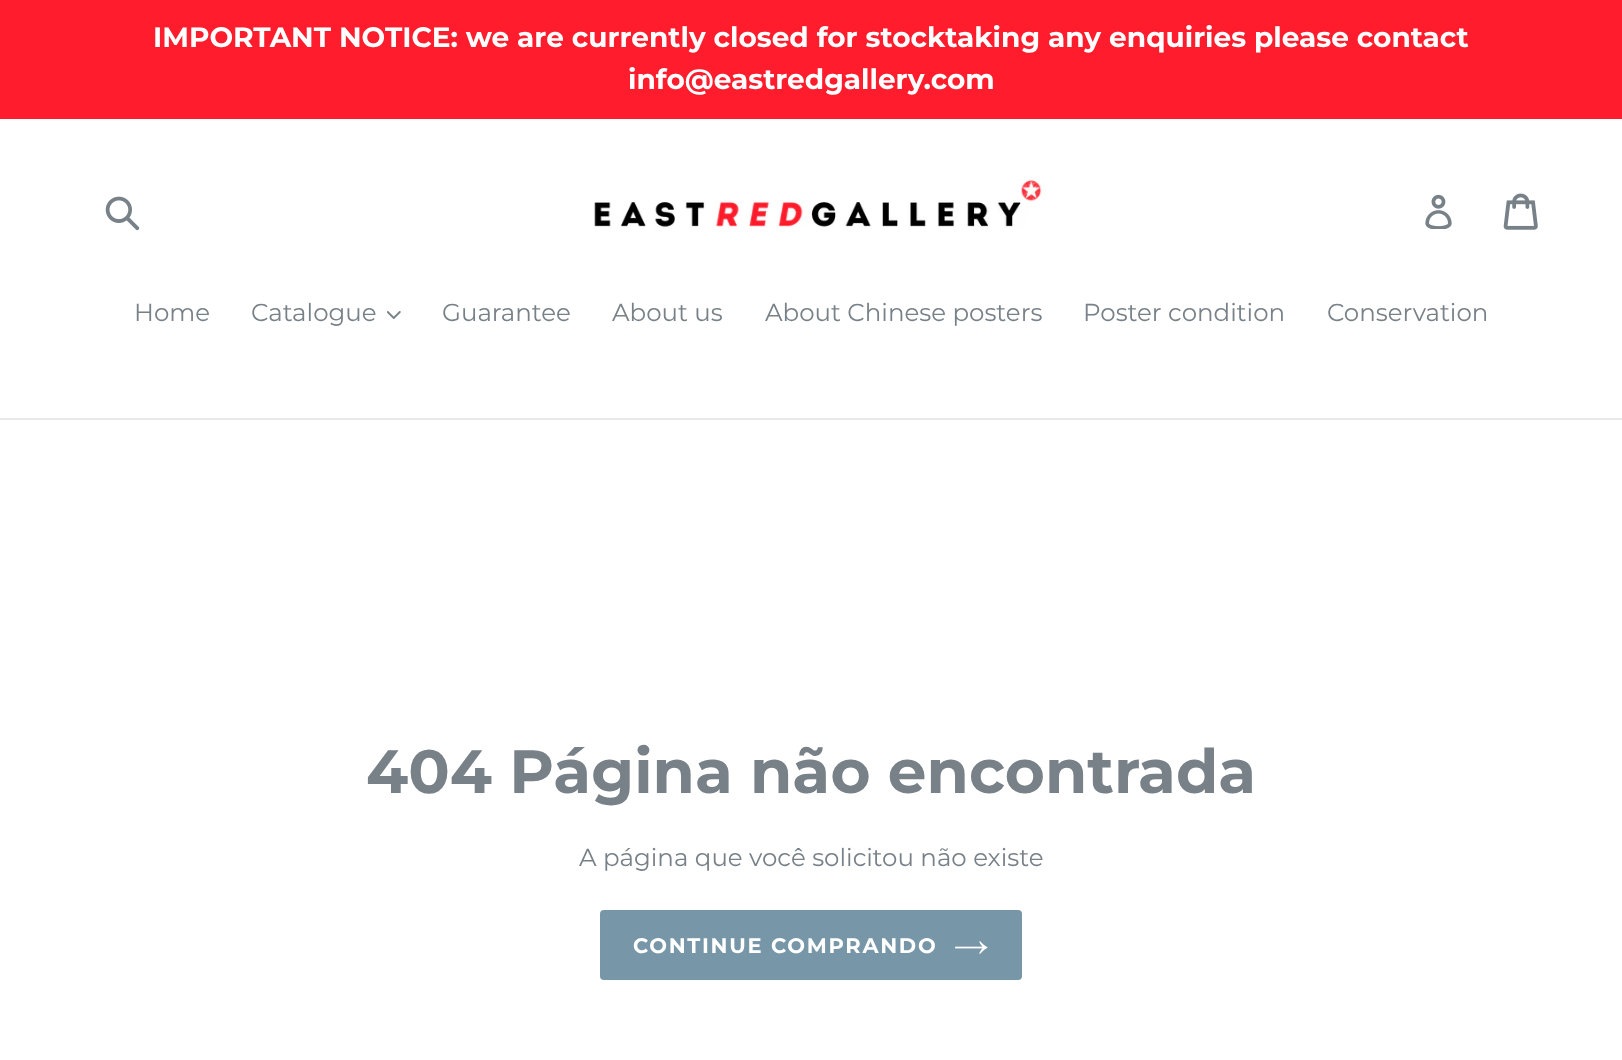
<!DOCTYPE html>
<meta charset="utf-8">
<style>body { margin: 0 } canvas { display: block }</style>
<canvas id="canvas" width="1622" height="1060"></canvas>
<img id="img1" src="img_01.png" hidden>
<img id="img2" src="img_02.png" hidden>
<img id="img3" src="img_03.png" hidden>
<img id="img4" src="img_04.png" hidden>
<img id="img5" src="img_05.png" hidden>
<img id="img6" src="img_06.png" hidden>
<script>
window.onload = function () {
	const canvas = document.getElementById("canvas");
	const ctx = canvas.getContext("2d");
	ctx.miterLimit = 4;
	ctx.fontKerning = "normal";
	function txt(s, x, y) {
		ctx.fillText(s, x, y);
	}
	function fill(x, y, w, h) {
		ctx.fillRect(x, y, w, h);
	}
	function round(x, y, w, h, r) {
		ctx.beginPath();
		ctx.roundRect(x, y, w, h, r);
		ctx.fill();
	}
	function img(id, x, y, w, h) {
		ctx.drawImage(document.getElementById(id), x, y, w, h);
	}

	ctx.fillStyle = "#FFFFFF";
	fill(0, 0, 1622, 1060);
	ctx.fillStyle = "#FF1C2C";
	fill(0, 0, 1622, 119);
	img("img1", 105, 196, 35, 35);
	img("img2", 594, 179, 452, 49);
	img("img3", 1425, 194, 27, 35);
	img("img4", 1503, 193, 35, 37);
	ctx.fillStyle = "#E8E9EB";
	fill(0, 418, 1622, 2);
	img("img5", 387, 311, 14, 8);
	ctx.fillStyle = "#7796A8";
	round(600, 910, 422, 70, 4);
	img("img6", 955, 941, 33, 13);
	ctx.font = "bold 28px Montserrat";
	ctx.fillStyle = "#FFFFFF";
	txt("IMPORTANT NOTICE: we are currently closed for stocktaking any enquiries please contact", 153, 47);
	txt("info@eastredgallery.com", 628, 89);
	ctx.font = "24.5px Montserrat";
	ctx.fillStyle = "#788188";
	txt("Home", 134, 321);
	txt("Catalogue", 251, 321);
	txt("Guarantee", 442, 321);
	txt("About us", 612, 321);
	txt("About Chinese posters", 765, 321);
	txt("Poster condition", 1083, 321);
	txt("Conservation", 1327, 321);
	ctx.font = "bold 61.25px Montserrat";
	txt("404 Página não encontrada", 366, 793);
	ctx.font = "24.5px Montserrat";
	txt("A página que você solicitou não existe", 579, 866);
	ctx.letterSpacing = "1.7px";
	ctx.font = "bold 21px Montserrat";
	ctx.fillStyle = "#FFFFFF";
	txt("CONTINUE COMPRANDO", 633, 953);
};
</script>
